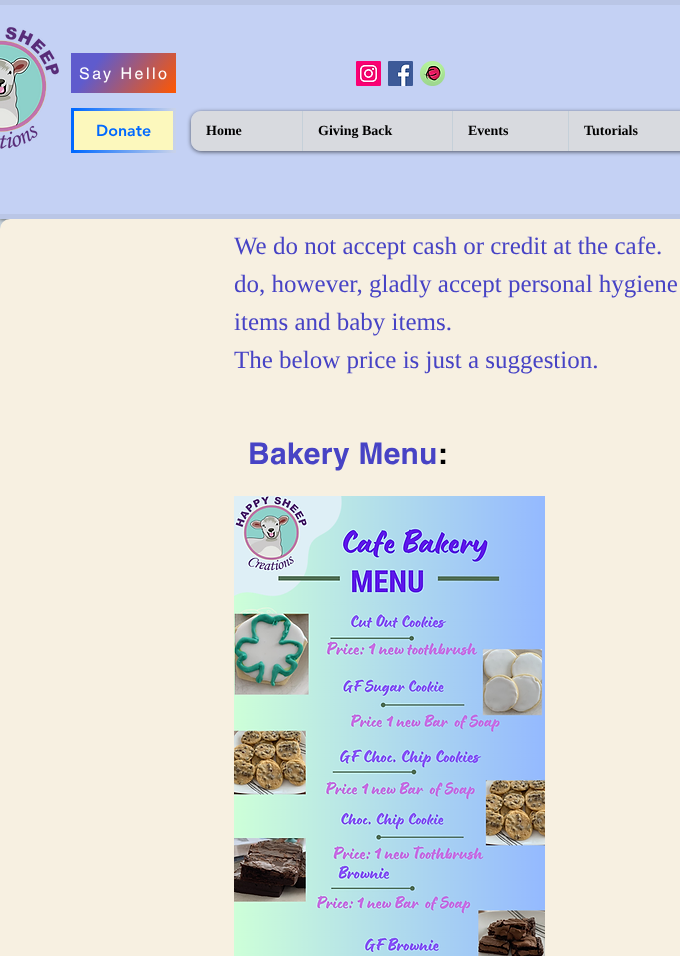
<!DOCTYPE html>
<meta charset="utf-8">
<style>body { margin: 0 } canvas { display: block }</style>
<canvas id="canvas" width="680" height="956"></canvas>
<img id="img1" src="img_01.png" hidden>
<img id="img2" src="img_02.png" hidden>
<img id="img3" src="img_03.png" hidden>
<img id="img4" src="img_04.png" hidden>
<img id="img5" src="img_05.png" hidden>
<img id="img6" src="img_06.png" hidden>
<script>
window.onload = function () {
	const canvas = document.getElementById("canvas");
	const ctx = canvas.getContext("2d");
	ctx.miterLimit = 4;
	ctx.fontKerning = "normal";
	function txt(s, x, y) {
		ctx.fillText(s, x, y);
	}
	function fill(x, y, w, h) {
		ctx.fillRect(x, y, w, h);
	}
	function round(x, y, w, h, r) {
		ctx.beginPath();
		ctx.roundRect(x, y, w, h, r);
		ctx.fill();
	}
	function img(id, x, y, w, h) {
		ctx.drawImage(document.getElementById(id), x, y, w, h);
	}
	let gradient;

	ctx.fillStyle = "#C5D0D9";
	fill(0, 0, 680, 956);
	ctx.fillStyle = "rgba(0, 0, 0, 0.7)";
	ctx.filter = "blur(2.5px)";
	ctx.beginPath();
	ctx.rect(0, 0, 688, 219);
	ctx.fill();
	ctx.filter = "none";
	ctx.fillStyle = "#C4D1F4";
	fill(0, 5, 680, 209);
	ctx.fillStyle = "#BAC6E6";
	fill(0, 0, 680, 5);
	fill(0, 214, 680, 5);
	img("img1", 0, 27, 59, 122);
	gradient = ctx.createLinearGradient(80, 41, 167, 105);
	gradient.addColorStop(0.24, "#5F5BCD");
	gradient.addColorStop(1, "#FF5700");
	ctx.fillStyle = gradient;
	fill(71, 53, 105, 40);
	img("img2", 356, 61, 25, 25);
	img("img3", 388, 61, 25, 25);
	img("img4", 420, 61, 25, 25);
	ctx.fillStyle = "#FCF8BD";
	fill(74, 111, 99, 39);
	img("img5", 71, 108, 105, 45);
	ctx.save();
	ctx.beginPath();
	ctx.moveTo(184, 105);
	ctx.lineTo(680, 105);
	ctx.lineTo(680, 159);
	ctx.lineTo(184, 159);
	ctx.closePath();
	ctx.moveTo(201, 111);
	ctx.lineTo(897, 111);
	ctx.bezierCurveTo(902.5, 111, 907, 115.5, 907, 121);
	ctx.lineTo(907, 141);
	ctx.bezierCurveTo(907, 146.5, 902.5, 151, 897, 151);
	ctx.lineTo(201, 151);
	ctx.bezierCurveTo(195.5, 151, 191, 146.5, 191, 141);
	ctx.lineTo(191, 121);
	ctx.bezierCurveTo(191, 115.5, 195.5, 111, 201, 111);
	ctx.closePath();
	ctx.clip("evenodd");
	ctx.fillStyle = "rgba(0, 0, 0, 0.6)";
	ctx.filter = "blur(2px)";
	ctx.beginPath();
	ctx.roundRect(191, 112, 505, 40, 10);
	ctx.fill();
	ctx.filter = "none";
	ctx.restore();
	ctx.fillStyle = "rgba(219, 219, 219, 0.86)";
	round(191, 111, 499, 40, 10);
	ctx.fillStyle = "#C5D0D9";
	fill(302, 111, 1, 40);
	fill(452, 111, 1, 40);
	fill(568, 111, 1, 40);
	ctx.fillStyle = "#F7F0E1";
	round(0, 219, 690, 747, 10);
	img("img6", 234, 496, 311, 460);
	ctx.letterSpacing = "2.5px";
	ctx.font = "16px helvetica";
	ctx.fillStyle = "#FFFFFF";
	txt("Say Hello", 79, 79);
	ctx.letterSpacing = "0px";
	ctx.font = "900 16px 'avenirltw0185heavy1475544'";
	ctx.fillStyle = "#0069FF";
	txt("Donate", 96, 136);
	ctx.font = "bold 14px Liberation Serif";
	ctx.fillStyle = "#000000";
	txt("Home", 206, 135);
	txt("Giving Back", 318, 135);
	txt("Events", 468, 135);
	txt("Tutorials", 584, 135);
	ctx.font = "25px Liberation Serif";
	ctx.fillStyle = "#4743C5";
	txt("We do not accept cash or credit at the cafe.", 234, 254);
	txt("do, however, gladly accept personal hygiene", 234, 292);
	txt("items and baby items.", 234, 330);
	txt("The below price is just a suggestion.", 234, 368);
	ctx.letterSpacing = "0.25px";
	ctx.font = "bold 30px helvetica";
	txt("Bakery Menu", 248, 464);
	ctx.fillStyle = "#000000";
	txt(":", 438, 464);
};
</script>
